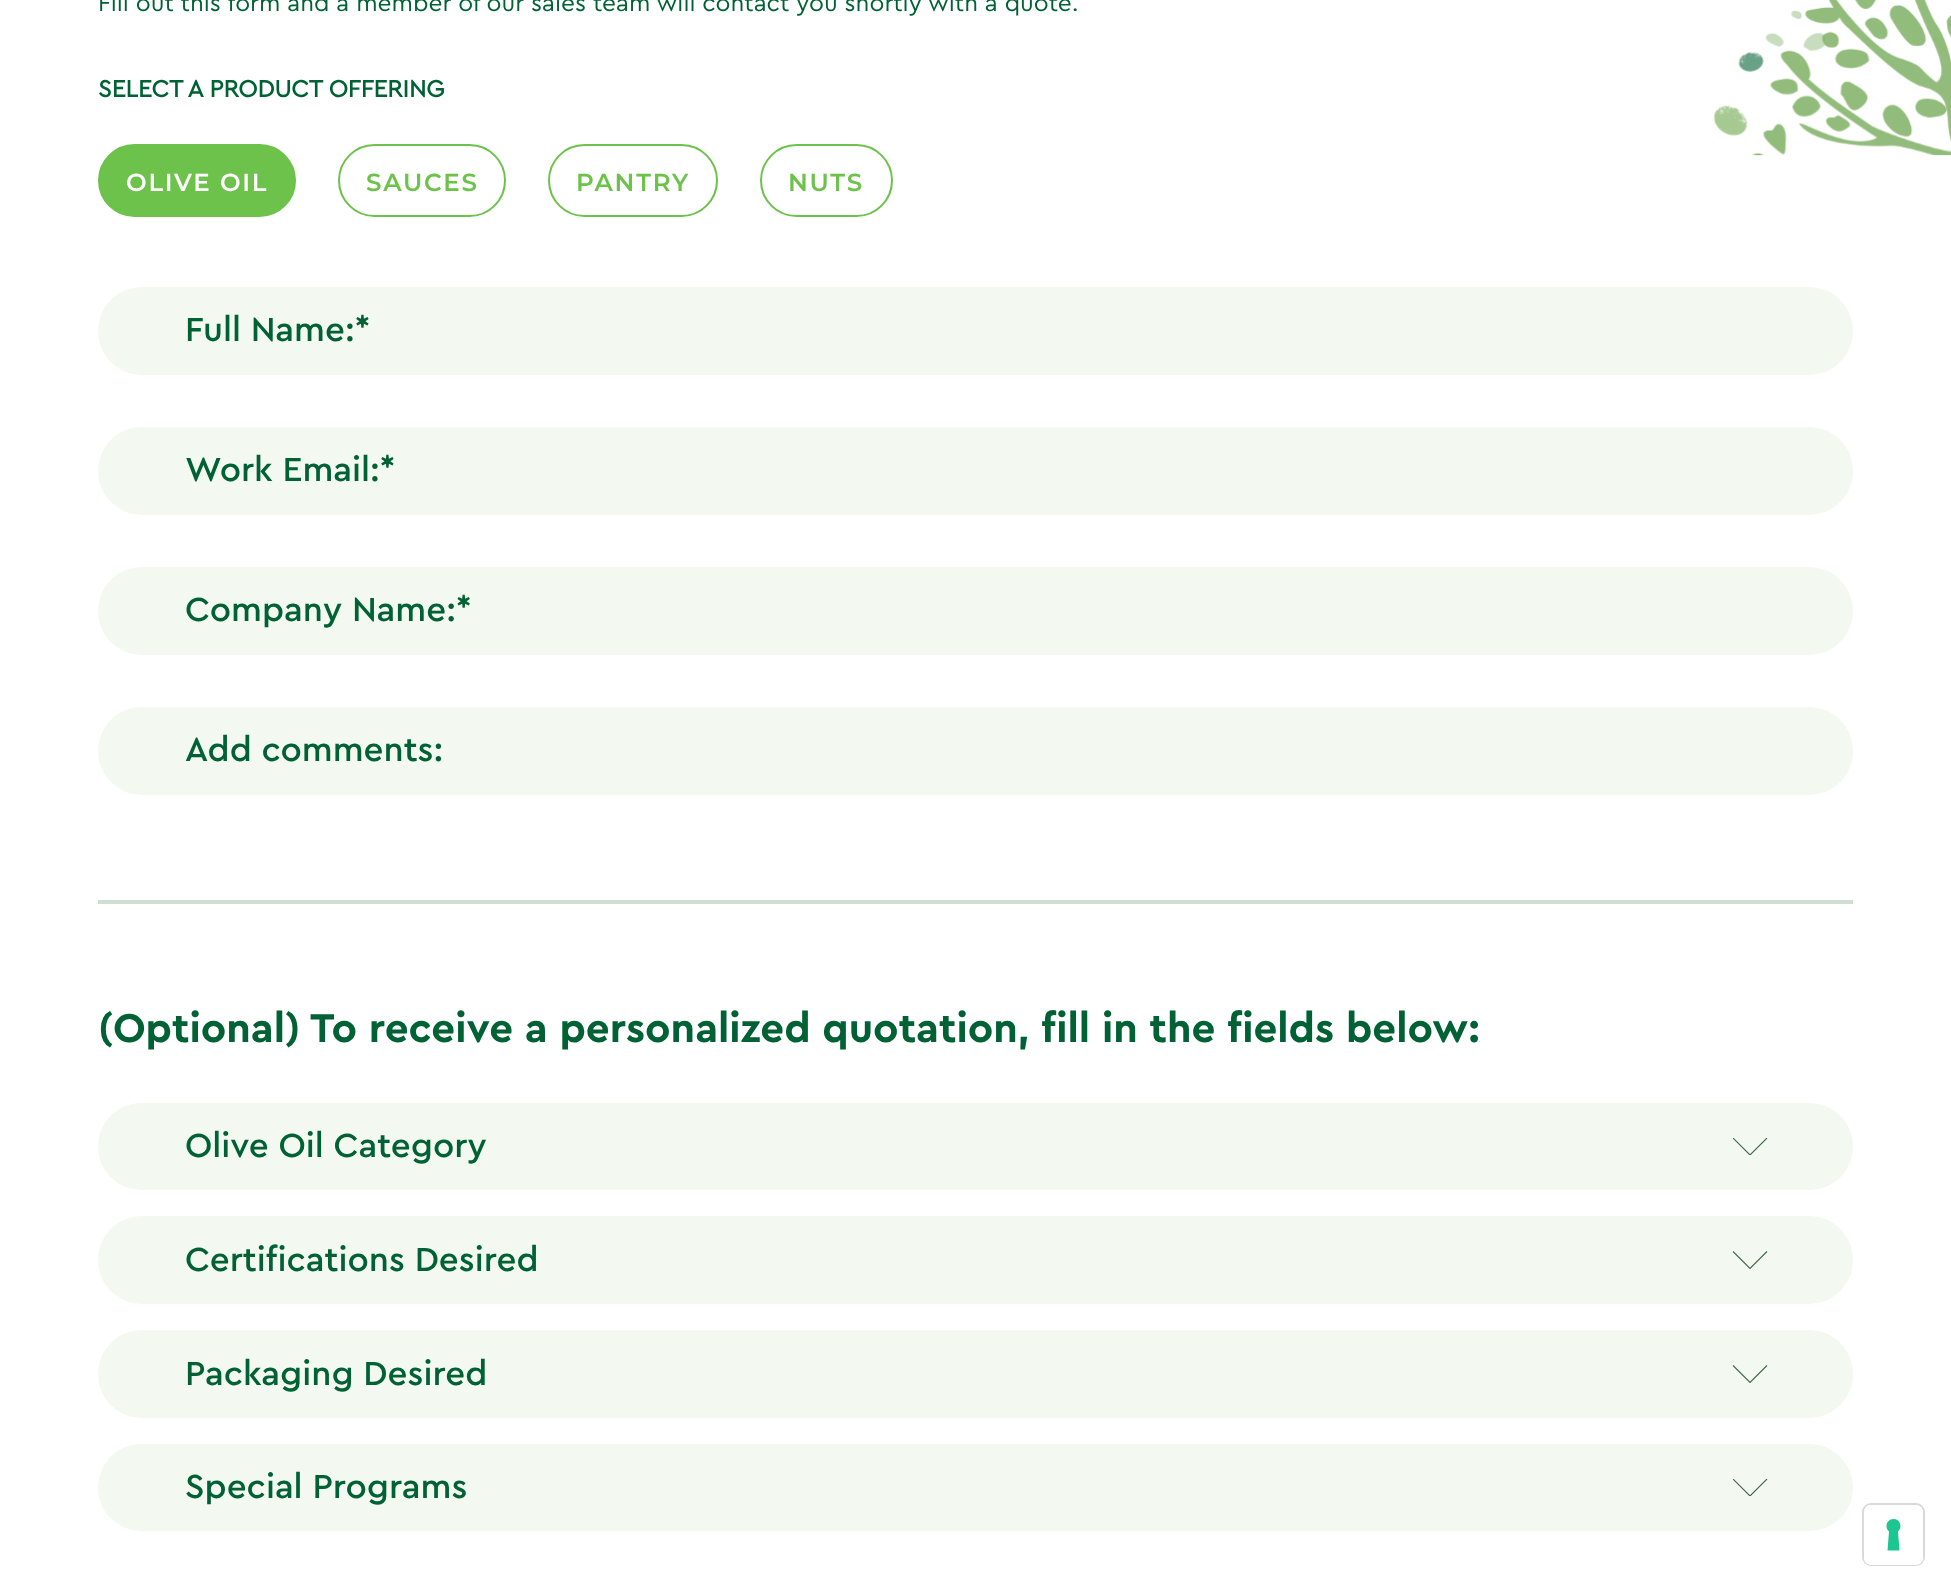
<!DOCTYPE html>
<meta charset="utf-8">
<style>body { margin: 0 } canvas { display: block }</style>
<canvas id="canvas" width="1951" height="1592"></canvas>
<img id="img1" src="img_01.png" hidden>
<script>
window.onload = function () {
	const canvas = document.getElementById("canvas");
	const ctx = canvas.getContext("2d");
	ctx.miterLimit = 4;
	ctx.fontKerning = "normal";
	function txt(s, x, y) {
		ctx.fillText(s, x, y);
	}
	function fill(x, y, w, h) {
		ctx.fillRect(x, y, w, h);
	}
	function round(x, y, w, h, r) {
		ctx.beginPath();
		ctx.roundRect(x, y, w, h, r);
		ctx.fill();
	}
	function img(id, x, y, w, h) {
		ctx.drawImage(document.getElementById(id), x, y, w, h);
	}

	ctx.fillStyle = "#FFFFFF";
	fill(0, 0, 1951, 1592);
	ctx.fillStyle = "#6CC24A";
	ctx.beginPath();
	ctx.roundRect(99, 145, 196, 71, 35.5);
	ctx.fill();
	ctx.strokeStyle = "#6CC24A";
	ctx.lineWidth = 2;
	ctx.stroke();
	ctx.beginPath();
	ctx.roundRect(339, 145, 166, 71, 35.5);
	ctx.stroke();
	ctx.beginPath();
	ctx.roundRect(549, 145, 168, 71, 35.5);
	ctx.stroke();
	ctx.beginPath();
	ctx.roundRect(761, 145, 131, 71, 35.5);
	ctx.stroke();
	img("img1", 1713, 0, 238, 156);
	ctx.fillStyle = "#D1DDD3";
	fill(98, 900, 1755, 4);
	ctx.fillStyle = "#F3F8F0";
	round(98, 287, 1755, 88, 44);
	round(98, 427, 1755, 88, 44);
	round(98, 567, 1755, 88, 44);
	round(98, 707, 1755, 88, 44);
	round(98, 1103, 1755, 87, 43.5);
	ctx.save();
	ctx.beginPath();
	ctx.rect(1733, 1138, 35, 17);
	ctx.clip();
	ctx.beginPath();
	ctx.moveTo(1767, 1138);
	ctx.lineTo(1750, 1155);
	ctx.lineTo(1733, 1138);
	ctx.strokeStyle = "#43664A";
	ctx.lineWidth = 1.1;
	ctx.stroke();
	ctx.restore();
	round(98, 1216, 1755, 88, 44);
	ctx.beginPath();
	ctx.moveTo(1767, 1251.5);
	ctx.lineTo(1750, 1268.5);
	ctx.lineTo(1733, 1251.5);
	ctx.strokeStyle = "#43664A";
	ctx.lineWidth = 1.1;
	ctx.stroke();
	round(98, 1330, 1755, 88, 44);
	ctx.beginPath();
	ctx.moveTo(1767, 1365.5);
	ctx.lineTo(1750, 1382.5);
	ctx.lineTo(1733, 1365.5);
	ctx.stroke();
	round(98, 1444, 1755, 87, 43.5);
	ctx.save();
	ctx.beginPath();
	ctx.rect(1733, 1479, 35, 17);
	ctx.clip();
	ctx.beginPath();
	ctx.moveTo(1767, 1479);
	ctx.lineTo(1750, 1496);
	ctx.lineTo(1733, 1479);
	ctx.stroke();
	ctx.restore();
	ctx.beginPath();
	ctx.roundRect(1863, 1504, 61, 61, 8);
	ctx.strokeStyle = "#D9D9D9";
	ctx.lineWidth = 2;
	ctx.stroke();
	ctx.fillStyle = "#FFFFFF";
	round(1864, 1505, 59, 60, 7);
	ctx.fillStyle = "#1CC691";
	ctx.beginPath();
	ctx.moveTo(1893.5, 1519);
	ctx.bezierCurveTo(1900, 1519, 1903, 1527, 1898, 1531.5);
	ctx.lineTo(1899.5, 1550.5);
	ctx.lineTo(1887.5, 1550.5);
	ctx.lineTo(1889, 1531.5);
	ctx.bezierCurveTo(1884, 1527, 1887, 1519, 1893.5, 1519);
	ctx.closePath();
	ctx.fill("evenodd");
	ctx.font = "24.5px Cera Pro";
	ctx.fillStyle = "#006234";
	txt("Fill out this form and a member of our sales team will contact you shortly with a quote.", 98, 11);
	ctx.font = "bold 24.5px Cera Pro";
	txt("SELECT A PRODUCT OFFERING", 98, 97);
	ctx.letterSpacing = "1.75px";
	ctx.font = "100 24.5px Montserrat";
	ctx.fillStyle = "#FFFFFF";
	txt("OLIVE OIL", 126, 191);
	ctx.fillStyle = "#6CC24A";
	txt("SAUCES", 366, 191);
	txt("PANTRY", 576, 191);
	txt("NUTS", 788, 191);
	ctx.letterSpacing = "0px";
	ctx.font = "500 35px Cera Pro";
	ctx.fillStyle = "#006234";
	txt("Full Name:*", 185, 341);
	txt("Work Email:*", 185, 481);
	txt("Company Name:*", 185, 621);
	txt("Add comments:", 185, 761);
	ctx.font = "bold 42px 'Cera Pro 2'";
	txt("(Optional) To receive a personalized quotation, fill in the fields below:", 98, 1042);
	ctx.font = "500 35px Cera Pro";
	txt("Olive Oil Category", 185, 1157);
	txt("Certifications Desired", 185, 1271);
	txt("Packaging Desired", 185, 1385);
	txt("Special Programs", 185, 1498);
};
</script>
